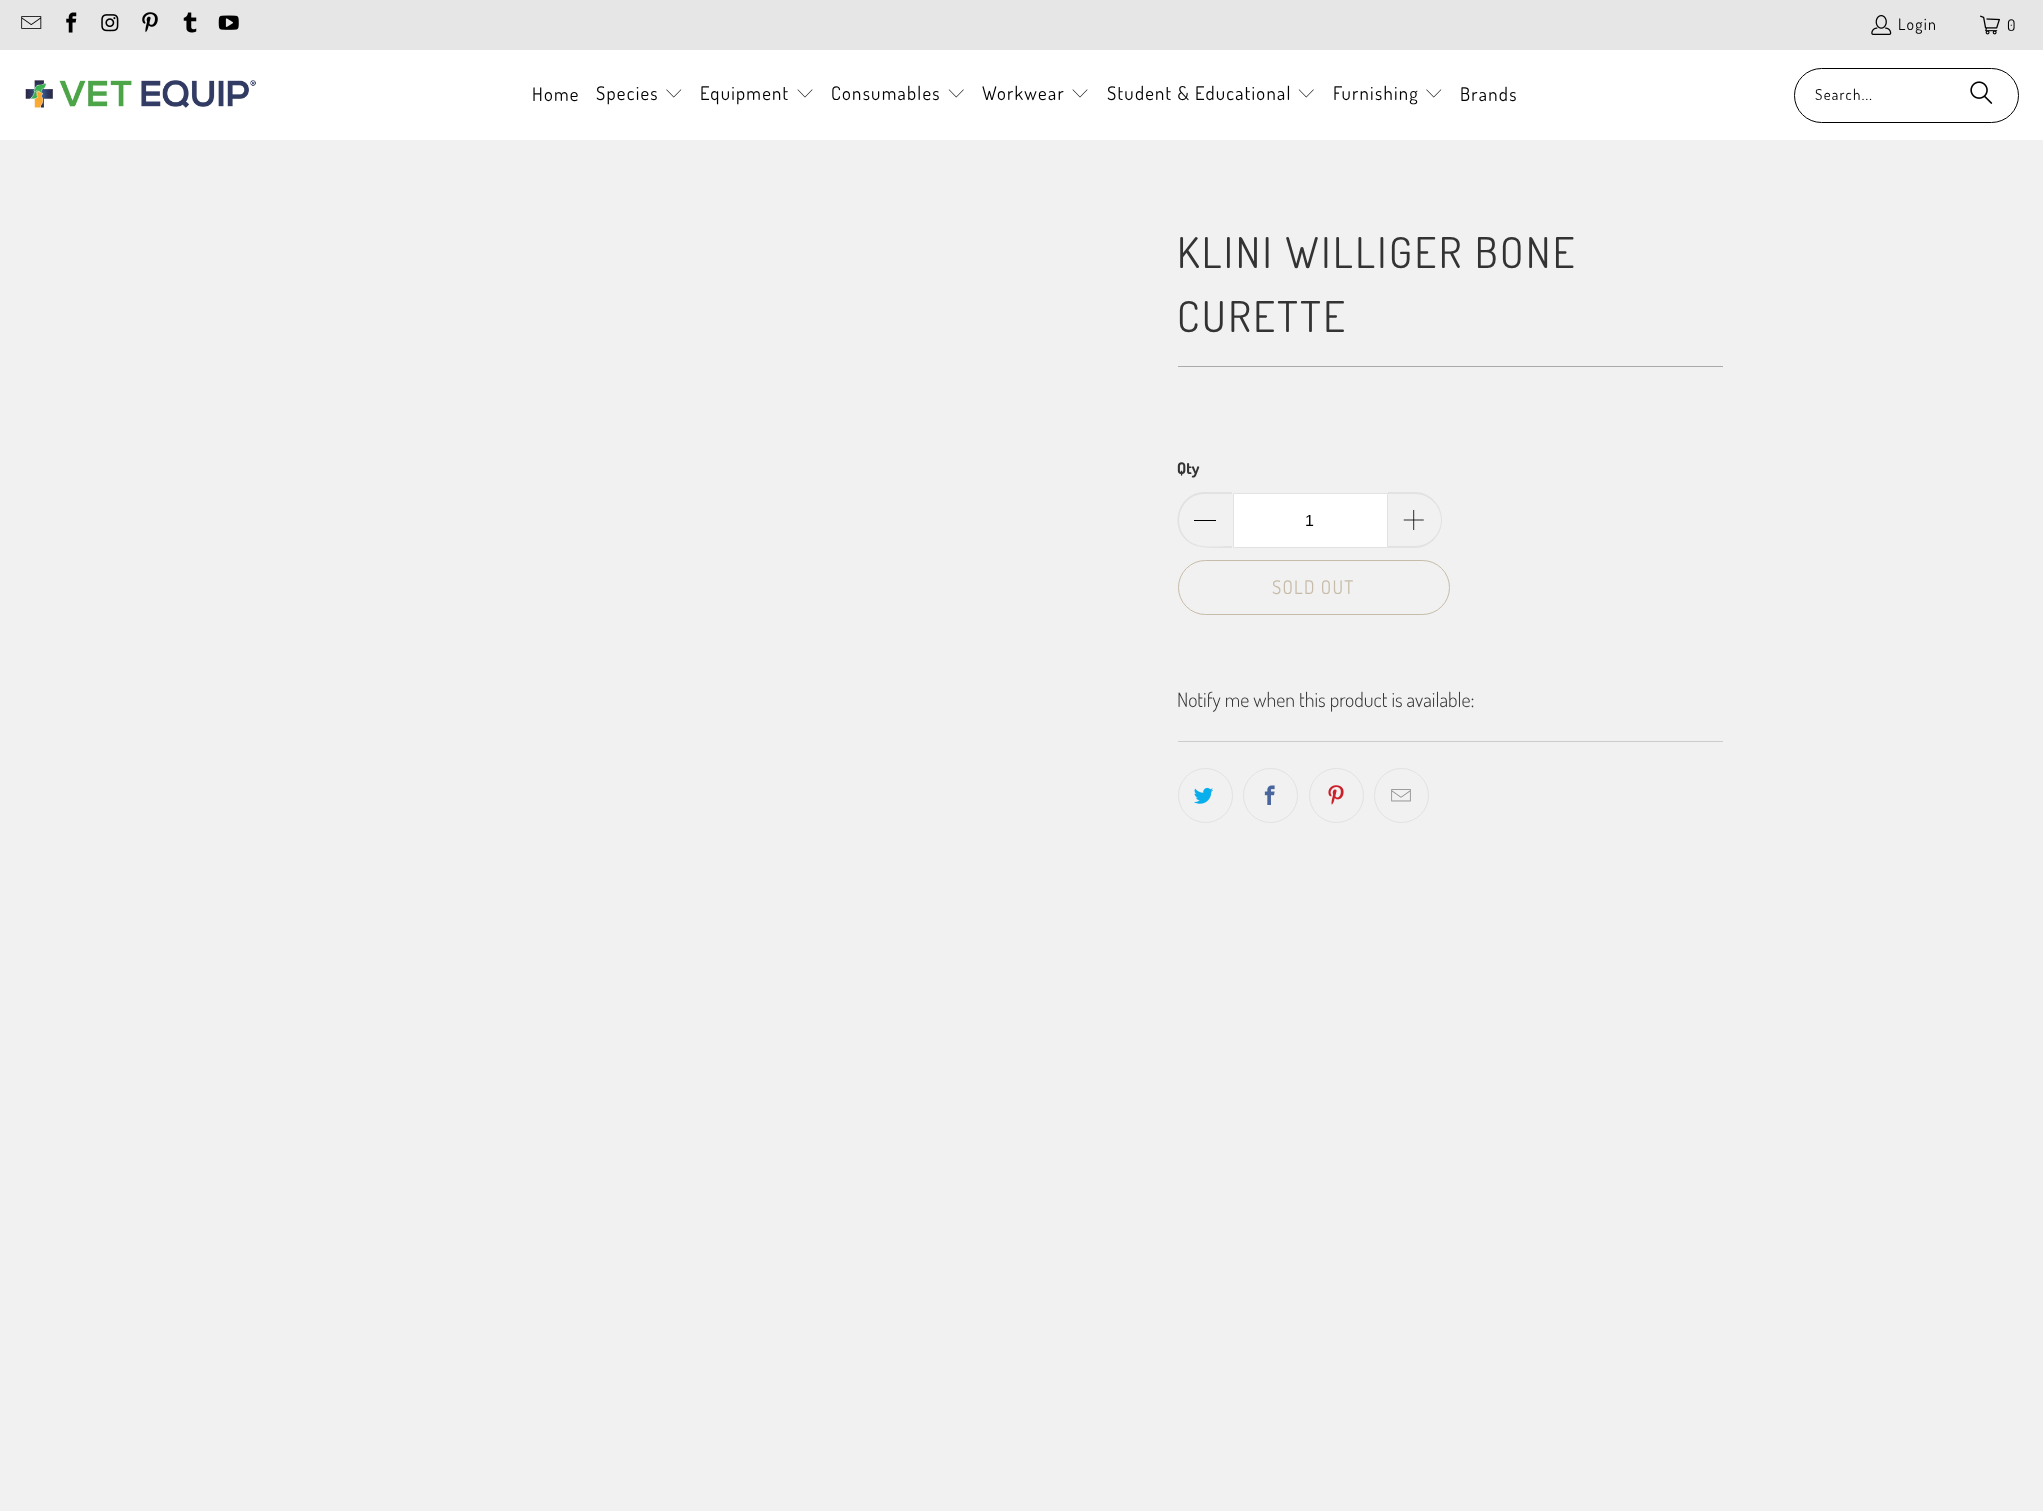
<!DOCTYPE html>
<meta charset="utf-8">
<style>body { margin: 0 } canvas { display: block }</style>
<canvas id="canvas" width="2043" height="1511"></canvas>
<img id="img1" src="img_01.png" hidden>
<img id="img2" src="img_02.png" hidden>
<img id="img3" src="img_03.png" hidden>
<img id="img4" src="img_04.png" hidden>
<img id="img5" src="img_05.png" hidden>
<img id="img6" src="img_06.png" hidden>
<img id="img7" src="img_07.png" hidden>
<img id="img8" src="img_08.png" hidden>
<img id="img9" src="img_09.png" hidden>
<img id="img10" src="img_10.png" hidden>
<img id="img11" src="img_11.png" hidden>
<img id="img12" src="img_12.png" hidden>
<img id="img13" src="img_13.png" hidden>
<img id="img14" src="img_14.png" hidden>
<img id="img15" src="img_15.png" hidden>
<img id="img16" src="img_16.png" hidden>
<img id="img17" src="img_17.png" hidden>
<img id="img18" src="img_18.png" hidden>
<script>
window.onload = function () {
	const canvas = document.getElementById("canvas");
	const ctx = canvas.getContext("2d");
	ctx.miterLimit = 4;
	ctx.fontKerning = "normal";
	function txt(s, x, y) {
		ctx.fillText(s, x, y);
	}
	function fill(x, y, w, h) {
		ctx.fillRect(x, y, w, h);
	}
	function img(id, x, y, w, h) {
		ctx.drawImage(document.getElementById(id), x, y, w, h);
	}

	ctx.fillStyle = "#F1F1F1";
	fill(0, 0, 2043, 1511);
	ctx.fillStyle = "#E6E6E6";
	fill(0, 0, 2043, 50);
	img("img1", 21, 16, 21, 13);
	img("img2", 66, 12, 11, 21);
	img("img3", 101, 14, 18, 18);
	img("img4", 142, 12, 16, 21);
	img("img5", 183, 12, 14, 21);
	img("img6", 218, 15, 21, 15);
	img("img7", 1871, 15, 21, 20);
	img("img8", 1980, 15, 20, 20);
	ctx.fillStyle = "#FFFFFF";
	fill(0, 50, 2043, 90);
	img("img9", 25, 80, 231, 28);
	img("img10", 666, 89, 16, 9);
	img("img11", 797, 89, 16, 9);
	img("img12", 948, 89, 16, 9);
	img("img11", 1072, 89, 16, 9);
	img("img12", 1298, 89, 16, 9);
	img("img10", 1426, 89, 16, 9);
	ctx.beginPath();
	ctx.roundRect(1794.5, 68.5, 224, 54, 27);
	ctx.strokeStyle = "#000000";
	ctx.stroke();
	img("img13", 1970, 81, 23, 23);
	ctx.fillStyle = "#AAAAAA";
	fill(1178, 366, 545, 1);
	ctx.fillStyle = "#E2E2E2";
	ctx.beginPath();
	ctx.moveTo(1205, 492);
	ctx.lineTo(1232, 492);
	ctx.lineTo(1232, 548);
	ctx.bezierCurveTo(1222, 548, 1203, 549, 1194, 545);
	ctx.bezierCurveTo(1167, 534, 1175, 492, 1205, 492);
	ctx.closePath();
	ctx.moveTo(1205, 494);
	ctx.lineTo(1232, 494);
	ctx.lineTo(1232, 546);
	ctx.bezierCurveTo(1223, 546, 1203, 548, 1195, 544);
	ctx.bezierCurveTo(1169, 533, 1177, 494, 1205, 494);
	ctx.closePath();
	ctx.fill("evenodd");
	ctx.fillStyle = "#000000";
	fill(1194, 520, 22, 1);
	ctx.fillStyle = "#FFFFFF";
	ctx.beginPath();
	ctx.rect(1233.5, 493.5, 154, 54);
	ctx.fill();
	ctx.strokeStyle = "#E2E2E2";
	ctx.stroke();
	ctx.fillStyle = "#E2E2E2";
	ctx.beginPath();
	ctx.moveTo(1388, 492);
	ctx.lineTo(1415, 492);
	ctx.bezierCurveTo(1430, 492, 1442, 505, 1442, 520);
	ctx.bezierCurveTo(1442, 535, 1430, 548, 1415, 548);
	ctx.lineTo(1388, 548);
	ctx.closePath();
	ctx.moveTo(1388, 494);
	ctx.lineTo(1415, 494);
	ctx.bezierCurveTo(1429, 494, 1441, 506, 1441, 520);
	ctx.bezierCurveTo(1441, 534, 1429, 546, 1415, 546);
	ctx.lineTo(1388, 546);
	ctx.closePath();
	ctx.fill("evenodd");
	img("img14", 1403, 510, 21, 20);
	ctx.beginPath();
	ctx.roundRect(1178.5, 560.5, 271, 54, 27);
	ctx.strokeStyle = "#C7BCA9";
	ctx.stroke();
	ctx.fillStyle = "#CCCCCC";
	fill(1178, 741, 545, 1);
	ctx.beginPath();
	ctx.arc(1205.5, 795.5, 27, 0, Math.PI * 2);
	ctx.strokeStyle = "#E2E2E2";
	ctx.stroke();
	img("img15", 1194, 787, 20, 17);
	ctx.beginPath();
	ctx.arc(1270.5, 795.5, 27, 0, Math.PI * 2);
	ctx.stroke();
	img("img16", 1264, 785, 11, 20);
	ctx.beginPath();
	ctx.arc(1336.5, 795.5, 27, 0, Math.PI * 2);
	ctx.stroke();
	img("img17", 1328, 785, 16, 20);
	ctx.beginPath();
	ctx.arc(1401.5, 795.5, 27, 0, Math.PI * 2);
	ctx.stroke();
	img("img18", 1391, 789, 20, 13);
	ctx.letterSpacing = "1.25px";
	ctx.font = "16px Dosis";
	ctx.fillStyle = "#000000";
	txt("Login", 1898, 30);
	txt("0", 2007, 31);
	ctx.font = "18.75px Dosis";
	txt("Home", 532, 101);
	txt("Species", 596, 100);
	txt("Equipment", 700, 100);
	txt("Consumables", 831, 100);
	txt("Workwear", 982, 100);
	txt("Student & Educational", 1107, 100);
	txt("Furnishing", 1333, 100);
	txt("Brands", 1460, 101);
	ctx.font = "15px Dosis";
	txt("Search...", 1815, 100);
	ctx.letterSpacing = "2.5px";
	ctx.font = "42.5px Dosis";
	ctx.fillStyle = "#333333";
	txt("KLINI WILLIGER BONE", 1177, 268);
	txt("CURETTE", 1177, 332);
	ctx.letterSpacing = "0px";
	ctx.font = "bold 16px Dosis";
	txt("Qty", 1177, 474);
	ctx.font = "16px Liberation Sans";
	ctx.fillStyle = "#000000";
	txt("1", 1305, 526);
	ctx.letterSpacing = "1.25px";
	ctx.font = "18.75px Dosis";
	ctx.fillStyle = "#C7BCA9";
	txt("SOLD OUT", 1272, 594);
	ctx.letterSpacing = "0px";
	ctx.font = "300 20px Dosis";
	ctx.fillStyle = "#333333";
	txt("Notify me when this product is available:", 1177, 707);
};
</script>
